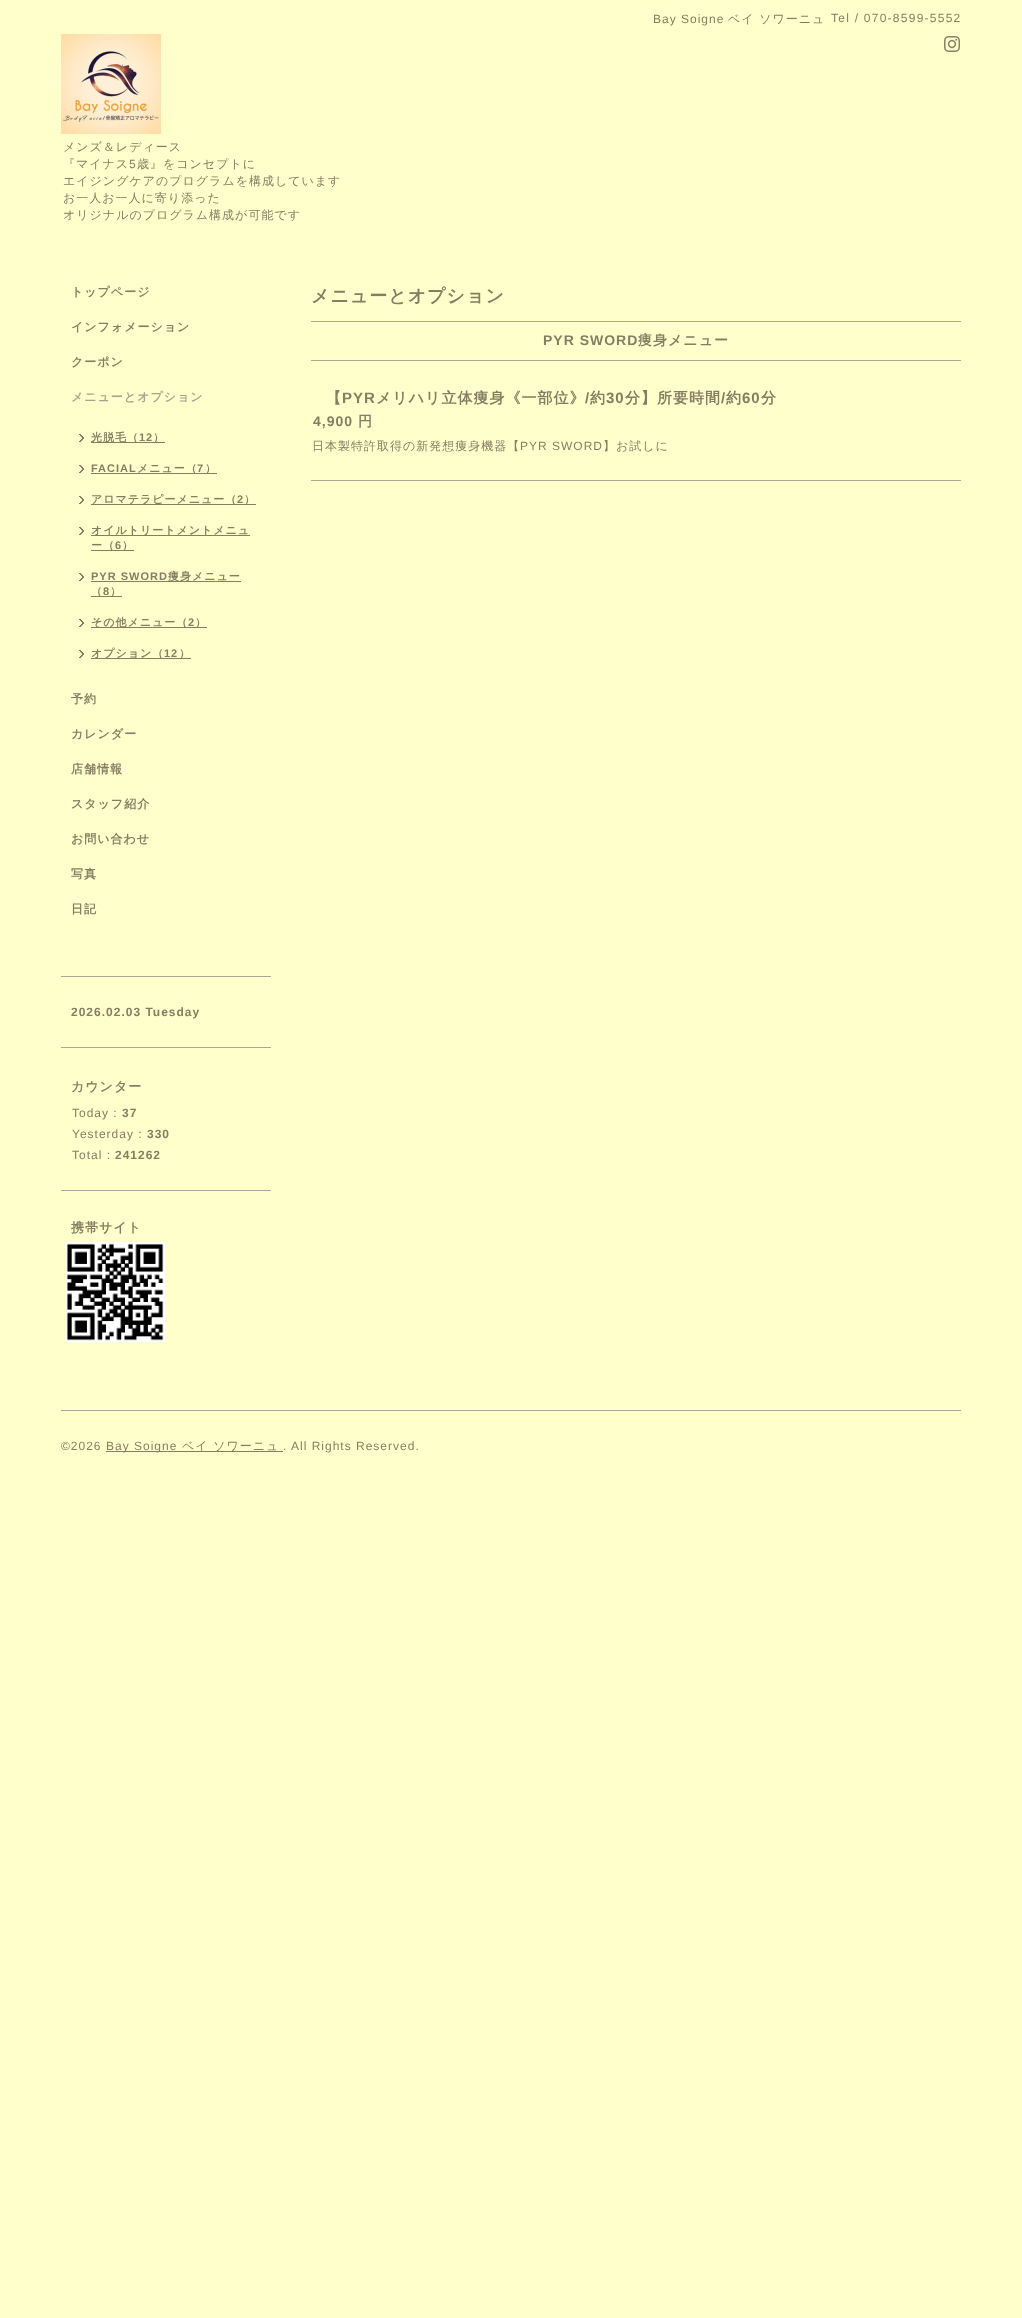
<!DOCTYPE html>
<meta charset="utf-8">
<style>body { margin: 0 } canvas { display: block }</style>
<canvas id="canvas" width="1022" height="2318"></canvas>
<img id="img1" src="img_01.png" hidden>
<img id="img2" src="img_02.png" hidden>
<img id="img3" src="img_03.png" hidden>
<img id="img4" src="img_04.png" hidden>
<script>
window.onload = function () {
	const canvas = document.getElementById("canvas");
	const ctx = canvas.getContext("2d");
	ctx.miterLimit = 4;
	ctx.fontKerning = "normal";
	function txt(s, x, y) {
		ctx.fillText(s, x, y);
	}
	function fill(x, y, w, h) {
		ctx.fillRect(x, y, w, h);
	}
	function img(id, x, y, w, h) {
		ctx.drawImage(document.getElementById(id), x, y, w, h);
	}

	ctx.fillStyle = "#FFFFCC";
	fill(0, 0, 1022, 2318);
	img("img1", 944, 36, 16, 16);
	img("img2", 61, 34, 100, 100);
	img("img3", 79, 434, 5, 8);
	ctx.fillStyle = "#877D62";
	fill(91, 442, 74, 1);
	img("img3", 79, 465, 5, 8);
	fill(91, 473, 126, 1);
	img("img3", 79, 496, 5, 8);
	fill(91, 504, 165, 1);
	img("img3", 79, 527, 5, 8);
	fill(91, 535, 159, 1);
	fill(91, 550, 43, 1);
	img("img3", 79, 573, 5, 8);
	fill(91, 581, 150, 1);
	fill(91, 596, 31, 1);
	img("img3", 79, 619, 5, 8);
	fill(91, 627, 116, 1);
	img("img3", 79, 650, 5, 8);
	fill(91, 658, 100, 1);
	ctx.fillStyle = "#ACA695";
	fill(311, 480, 650, 1);
	fill(311, 321, 650, 1);
	fill(311, 360, 650, 1);
	fill(61, 976, 210, 1);
	fill(61, 1047, 210, 1);
	fill(61, 1190, 210, 1);
	img("img4", 65, 1242, 100, 100);
	fill(61, 1410, 900, 1);
	ctx.fillStyle = "#877D62";
	fill(106, 1451, 177, 1);
	ctx.letterSpacing = "1px";
	ctx.font = "12px Liberation Sans";
	txt("Bay Soigne", 653, 23);
	ctx.font = "500 12px WenQuanYi Zen Hei";
	txt("ベイ ソワーニュ", 728, 23);
	ctx.letterSpacing = "1.25px";
	ctx.font = "12px Liberation Sans";
	txt("Tel / 070-8599-5552", 831, 22);
	ctx.letterSpacing = "1px";
	ctx.font = "500 12px WenQuanYi Zen Hei";
	txt("メンズ＆レディース", 63, 151);
	txt("『マイナス", 63, 168);
	ctx.font = "12px Liberation Sans";
	txt("5", 129, 168);
	ctx.font = "500 12px WenQuanYi Zen Hei";
	txt("歳』をコンセプトに", 137, 168);
	txt("エイジングケアのプログラムを構成しています", 63, 185);
	txt("お一人お一人に寄り添った", 63, 202);
	txt("オリジナルのプログラム構成が可能です", 63, 219);
	ctx.font = "bold 12px WenQuanYi Zen Hei";
	txt("トップページ", 71, 296);
	txt("インフォメーション", 71, 331);
	txt("クーポン", 71, 366);
	ctx.fillStyle = "#ACA38C";
	txt("メニューとオプション", 71, 401);
	ctx.font = "bold 11px WenQuanYi Zen Hei";
	ctx.fillStyle = "#877D62";
	txt("光脱毛（", 91, 441);
	ctx.font = "bold 11px Liberation Sans";
	txt("12", 139, 441);
	ctx.font = "bold 11px WenQuanYi Zen Hei";
	txt("）", 153, 441);
	ctx.font = "bold 11px Liberation Sans";
	txt("FACIAL", 91, 472);
	ctx.font = "bold 11px WenQuanYi Zen Hei";
	txt("メニュー（", 137, 472);
	ctx.font = "bold 11px Liberation Sans";
	txt("7", 197, 472);
	ctx.font = "bold 11px WenQuanYi Zen Hei";
	txt("）", 205, 472);
	txt("アロマテラピーメニュー（", 91, 503);
	ctx.font = "bold 11px Liberation Sans";
	txt("2", 237, 503);
	ctx.font = "bold 11px WenQuanYi Zen Hei";
	txt("）", 244, 503);
	txt("オイルトリートメントメニュ", 91, 534);
	txt("ー（", 91, 549);
	ctx.font = "bold 11px Liberation Sans";
	txt("6", 115, 549);
	ctx.font = "bold 11px WenQuanYi Zen Hei";
	txt("）", 122, 549);
	ctx.font = "bold 11px Liberation Sans";
	txt("PYR SWORD", 91, 580);
	ctx.font = "bold 11px WenQuanYi Zen Hei";
	txt("痩身メニュー", 168, 580);
	txt("（", 91, 595);
	ctx.font = "bold 11px Liberation Sans";
	txt("8", 103, 595);
	ctx.font = "bold 11px WenQuanYi Zen Hei";
	txt("）", 110, 595);
	txt("その他メニュー（", 91, 626);
	ctx.font = "bold 11px Liberation Sans";
	txt("2", 188, 626);
	ctx.font = "bold 11px WenQuanYi Zen Hei";
	txt("）", 195, 626);
	txt("オプション（", 91, 657);
	ctx.font = "bold 11px Liberation Sans";
	txt("12", 164, 657);
	ctx.font = "bold 11px WenQuanYi Zen Hei";
	txt("）", 179, 657);
	ctx.font = "bold 12px WenQuanYi Zen Hei";
	txt("予約", 71, 703);
	txt("カレンダー", 71, 738);
	txt("店舗情報", 71, 773);
	txt("スタッフ紹介", 71, 808);
	txt("お問い合わせ", 71, 843);
	txt("写真", 71, 878);
	txt("日記", 71, 913);
	ctx.font = "bold 18px WenQuanYi Zen Hei";
	txt("メニューとオプション", 311, 302);
	ctx.font = "bold 14px Liberation Sans";
	txt("PYR SWORD", 543, 345);
	ctx.font = "bold 14px WenQuanYi Zen Hei";
	txt("痩身メニュー", 638, 345);
	ctx.font = "bold 15px WenQuanYi Zen Hei";
	txt("【", 326, 403);
	ctx.font = "bold 15px Liberation Sans";
	txt("PYR", 342, 403);
	ctx.font = "bold 15px WenQuanYi Zen Hei";
	txt("メリハリ立体痩身《一部位》", 376, 403);
	ctx.font = "bold 15px Liberation Sans";
	txt("/", 585, 403);
	ctx.font = "bold 15px WenQuanYi Zen Hei";
	txt("約", 590, 403);
	ctx.font = "bold 15px Liberation Sans";
	txt("30", 606, 403);
	ctx.font = "bold 15px WenQuanYi Zen Hei";
	txt("分】所要時間", 625, 403);
	ctx.font = "bold 15px Liberation Sans";
	txt("/", 721, 403);
	ctx.font = "bold 15px WenQuanYi Zen Hei";
	txt("約", 726, 403);
	ctx.font = "bold 15px Liberation Sans";
	txt("60", 742, 403);
	ctx.font = "bold 15px WenQuanYi Zen Hei";
	txt("分", 761, 403);
	ctx.font = "bold 14px Liberation Sans";
	txt("4,900", 313, 426);
	ctx.font = "bold 14px WenQuanYi Zen Hei";
	txt("円", 358, 426);
	ctx.font = "500 12px WenQuanYi Zen Hei";
	txt("日本製特許取得の新発想痩身機器【", 312, 450);
	ctx.font = "12px Liberation Sans";
	txt("PYR SWORD", 520, 450);
	ctx.font = "500 12px WenQuanYi Zen Hei";
	txt("】お試しに", 603, 450);
	ctx.font = "bold 12px Liberation Sans";
	txt("2026.02.03 Tuesday", 71, 1016);
	ctx.font = "bold 13px WenQuanYi Zen Hei";
	txt("カウンター", 71, 1091);
	ctx.font = "12px Liberation Sans";
	txt("Today :", 72, 1117);
	ctx.font = "bold 12px Liberation Sans";
	txt("37", 122, 1117);
	ctx.font = "12px Liberation Sans";
	txt("Yesterday :", 72, 1138);
	ctx.font = "bold 12px Liberation Sans";
	txt("330", 147, 1138);
	ctx.font = "12px Liberation Sans";
	txt("Total :", 72, 1159);
	ctx.font = "bold 12px Liberation Sans";
	txt("241262", 115, 1159);
	ctx.font = "bold 13px WenQuanYi Zen Hei";
	txt("携帯サイト", 71, 1232);
	ctx.font = "12px Liberation Sans";
	txt("©2026", 61, 1450);
	txt("Bay Soigne", 106, 1450);
	ctx.font = "500 12px WenQuanYi Zen Hei";
	txt("ベイ ソワーニュ", 182, 1450);
	ctx.font = "12px Liberation Sans";
	txt(". All Rights Reserved.", 283, 1450);
};
</script>
